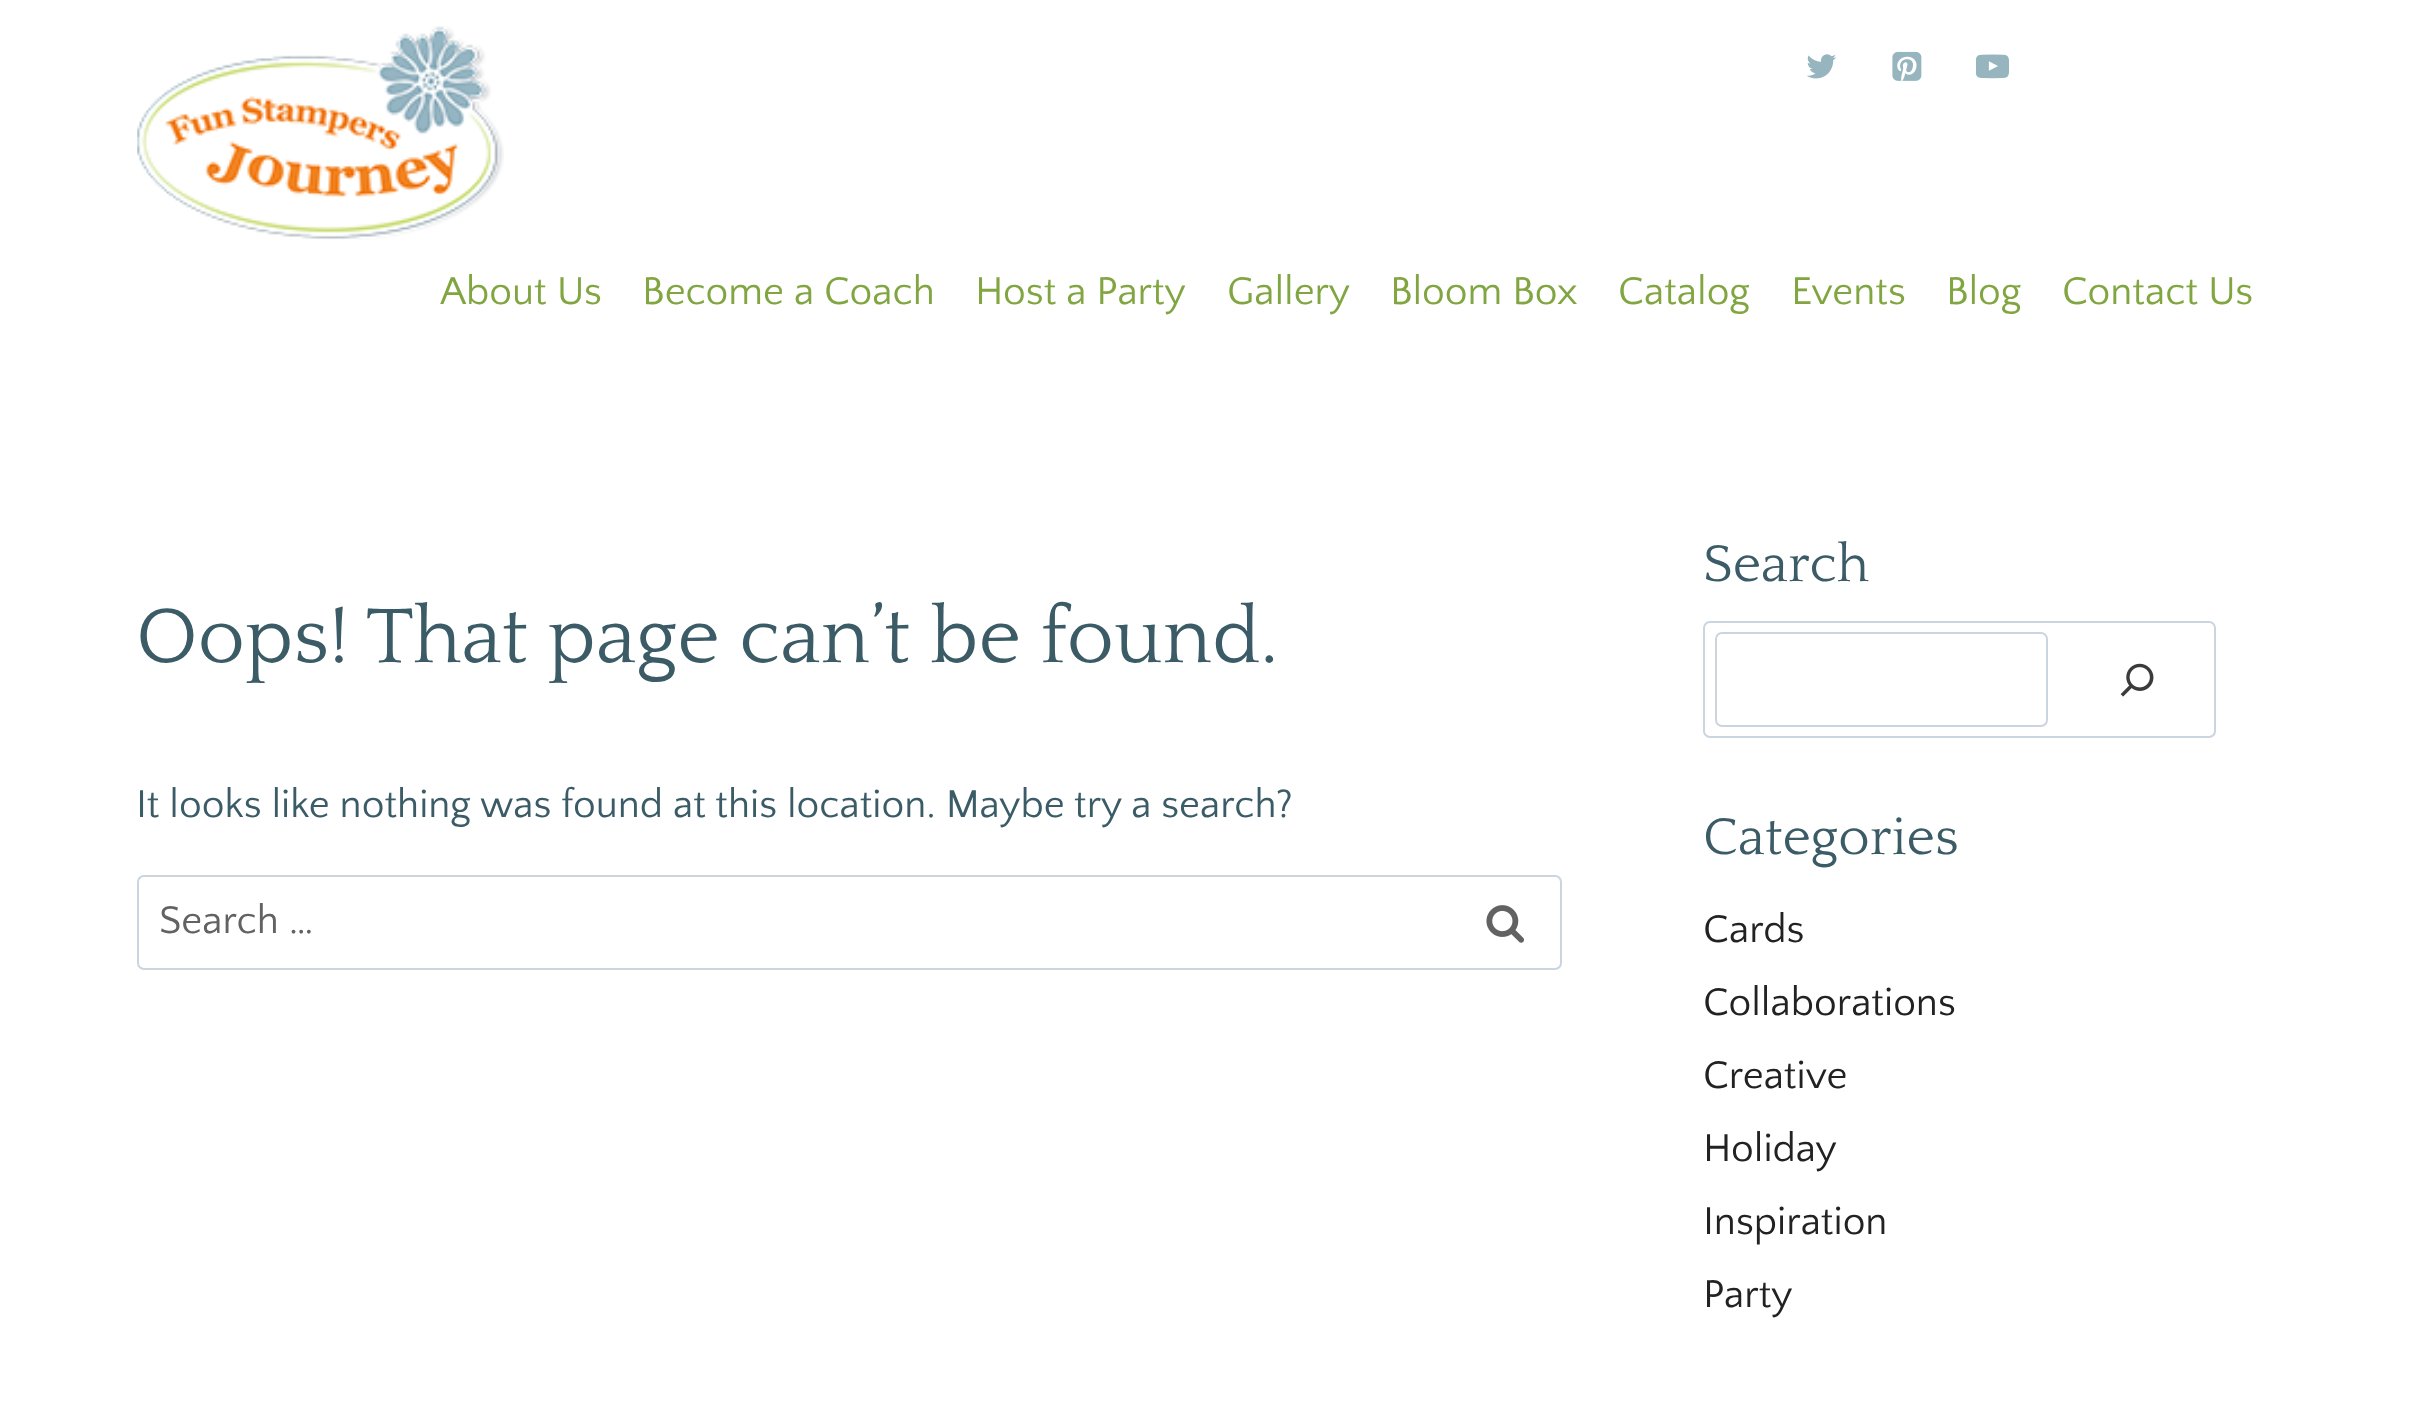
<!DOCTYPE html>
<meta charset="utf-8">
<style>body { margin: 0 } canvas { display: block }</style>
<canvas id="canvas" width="2409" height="1414"></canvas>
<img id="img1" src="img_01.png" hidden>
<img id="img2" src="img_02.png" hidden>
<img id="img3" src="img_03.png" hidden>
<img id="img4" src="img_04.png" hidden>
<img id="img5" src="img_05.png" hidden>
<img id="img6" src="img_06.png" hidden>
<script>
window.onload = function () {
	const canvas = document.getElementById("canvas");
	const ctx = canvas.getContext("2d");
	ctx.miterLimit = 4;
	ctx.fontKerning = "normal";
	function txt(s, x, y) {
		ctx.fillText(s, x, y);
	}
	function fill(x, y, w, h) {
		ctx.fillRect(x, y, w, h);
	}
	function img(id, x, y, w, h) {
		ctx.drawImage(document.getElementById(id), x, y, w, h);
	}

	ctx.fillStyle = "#FFFFFF";
	fill(0, 0, 2409, 1414);
	img("img1", 137, 26, 367, 214);
	img("img2", 1806, 54, 30, 25);
	img("img3", 1892, 51, 30, 30);
	img("img4", 1976, 54, 33, 25);
	ctx.beginPath();
	ctx.roundRect(138, 876, 1423, 93, 6);
	ctx.strokeStyle = "#CBD5E0";
	ctx.lineWidth = 2;
	ctx.stroke();
	img("img5", 1486, 905, 38, 38);
	ctx.beginPath();
	ctx.roundRect(1704, 622, 511, 115, 6);
	ctx.stroke();
	ctx.beginPath();
	ctx.roundRect(1716, 633, 331, 93, 6);
	ctx.stroke();
	img("img6", 2120, 663, 34, 34);
	ctx.font = "40.5px Quattrocento Sans";
	ctx.fillStyle = "#81A641";
	txt("About Us", 440, 304);
	txt("Become a Coach", 642, 304);
	txt("Host a Party", 975, 304);
	txt("Gallery", 1227, 304);
	txt("Bloom Box", 1390, 304);
	txt("Catalog", 1618, 304);
	txt("Events", 1791, 304);
	txt("Blog", 1946, 304);
	txt("Contact Us", 2062, 304);
	ctx.font = "81px Quattrocento";
	ctx.fillStyle = "#3B5C67";
	txt("Oops! That page can’t be found.", 136, 662);
	ctx.font = "40.5px Quattrocento Sans";
	txt("It looks like nothing was found at this location. Maybe try a search?", 136, 817);
	ctx.fillStyle = "#626262";
	txt("Search …", 159, 933);
	ctx.font = "54px Quattrocento";
	ctx.fillStyle = "#3B5C67";
	txt("Search", 1703, 581);
	txt("Categories", 1703, 854);
	ctx.font = "40.5px Quattrocento Sans";
	ctx.fillStyle = "#222222";
	txt("Cards", 1703, 942);
	txt("Collaborations", 1703, 1015);
	txt("Creative", 1703, 1088);
	txt("Holiday", 1703, 1161);
	txt("Inspiration", 1703, 1234);
	txt("Party", 1703, 1307);
};
</script>
